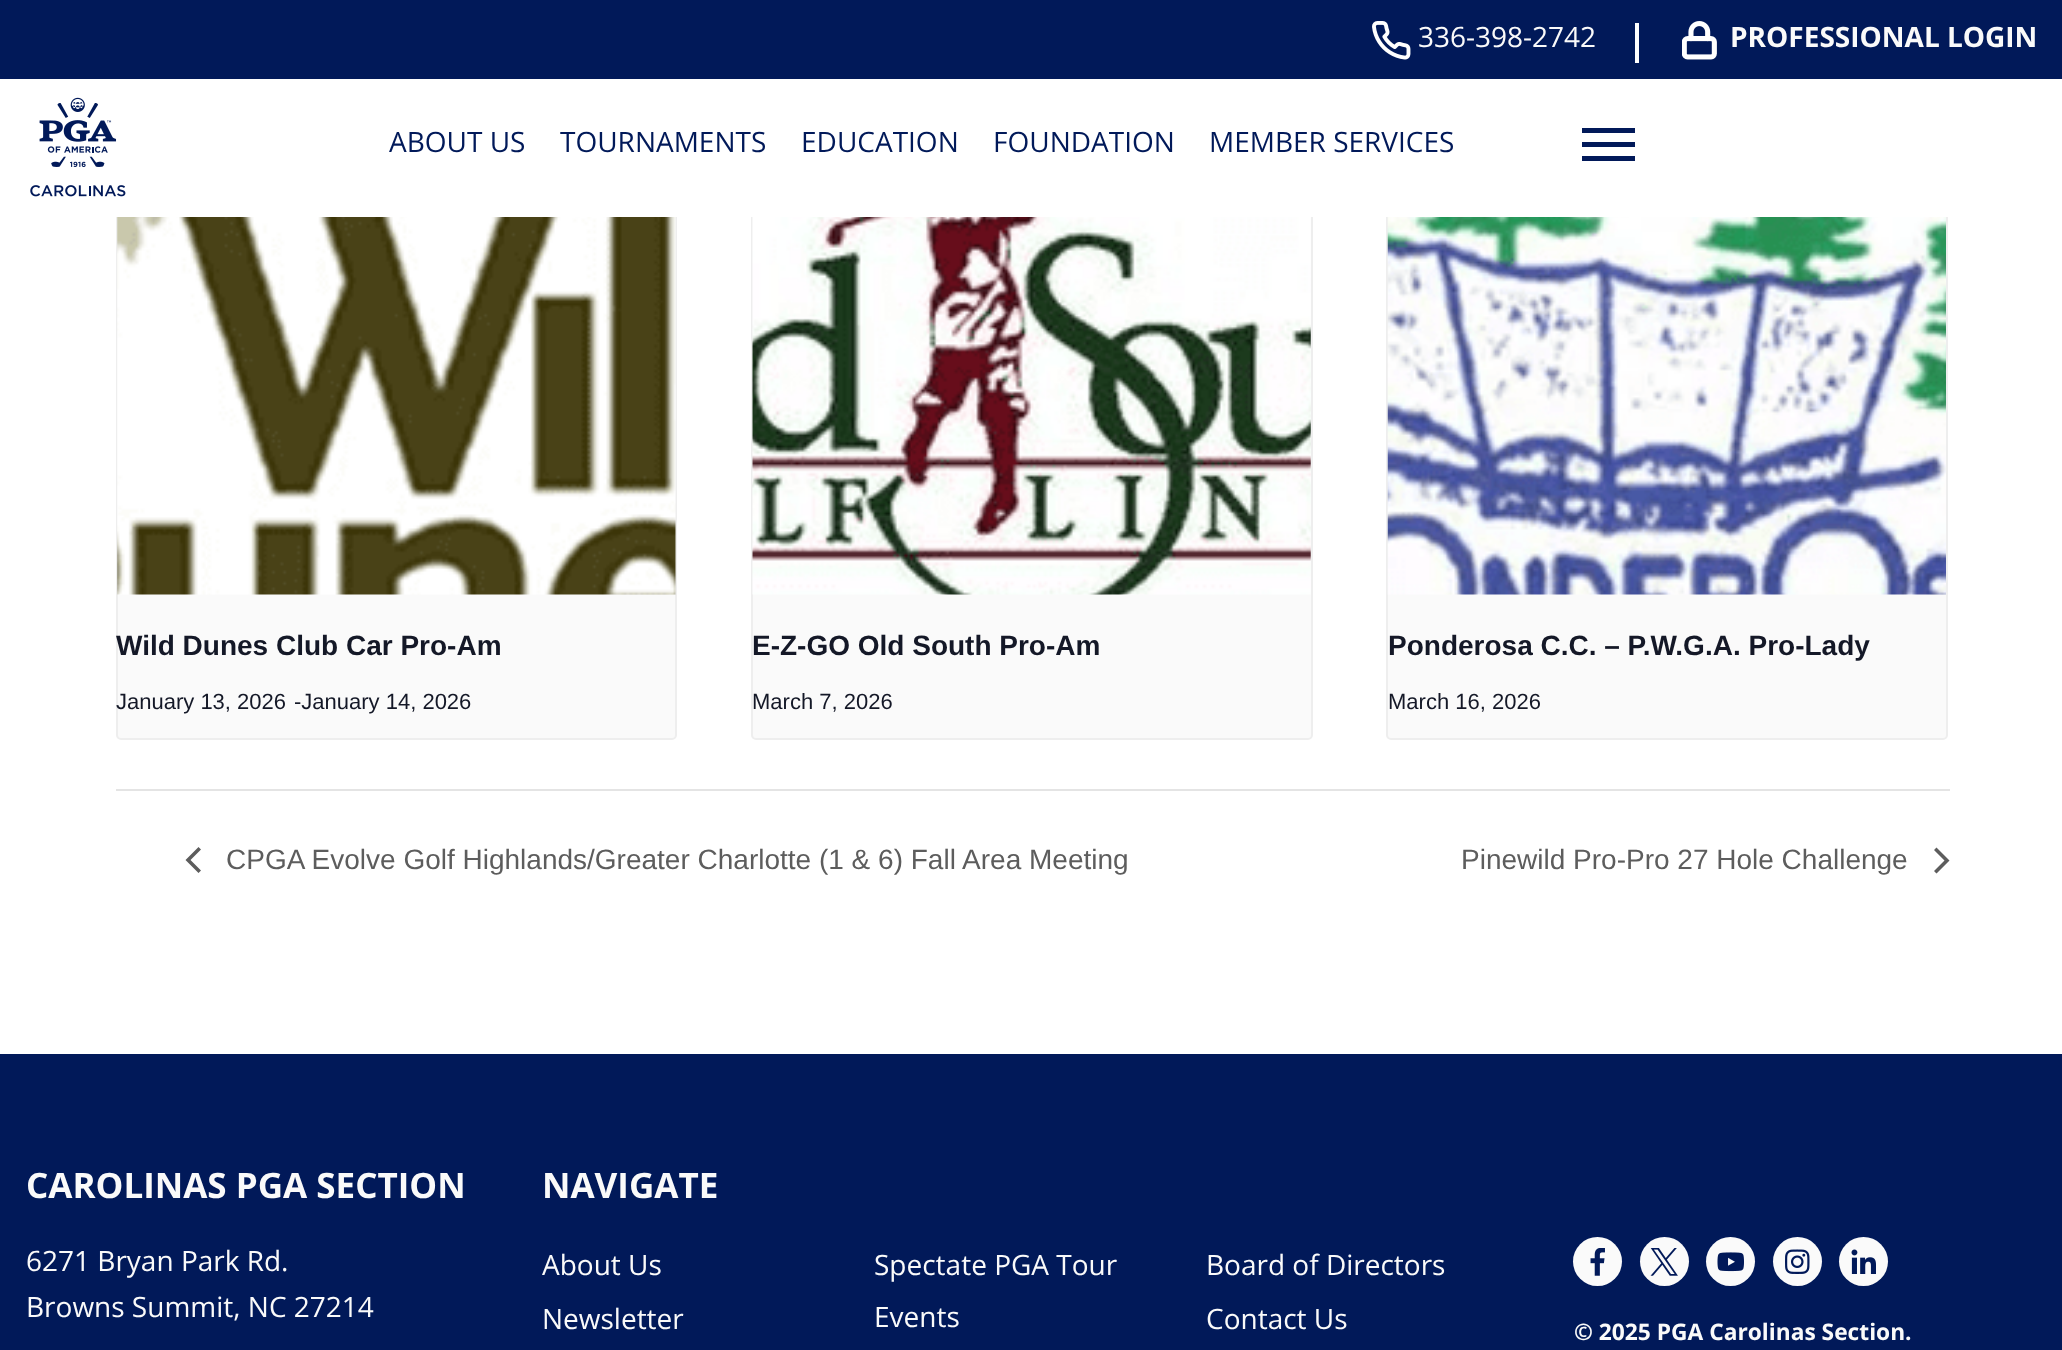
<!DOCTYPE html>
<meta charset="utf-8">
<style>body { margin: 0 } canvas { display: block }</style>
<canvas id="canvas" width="2062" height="1350"></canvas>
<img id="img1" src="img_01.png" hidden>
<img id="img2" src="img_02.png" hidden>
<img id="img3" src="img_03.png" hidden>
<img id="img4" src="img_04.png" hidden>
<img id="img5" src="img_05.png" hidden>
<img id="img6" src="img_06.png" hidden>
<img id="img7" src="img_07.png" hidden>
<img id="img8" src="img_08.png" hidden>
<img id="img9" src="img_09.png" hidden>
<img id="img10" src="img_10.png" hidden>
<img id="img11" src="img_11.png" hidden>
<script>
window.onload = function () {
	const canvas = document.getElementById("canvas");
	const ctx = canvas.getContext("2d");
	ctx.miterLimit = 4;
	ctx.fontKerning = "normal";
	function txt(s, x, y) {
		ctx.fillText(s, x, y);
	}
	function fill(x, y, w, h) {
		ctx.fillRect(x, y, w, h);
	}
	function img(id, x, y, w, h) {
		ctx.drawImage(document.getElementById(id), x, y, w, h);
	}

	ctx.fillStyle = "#FFFFFF";
	fill(0, 0, 2062, 1350);
	ctx.fillStyle = "#FAFAFA";
	ctx.beginPath();
	ctx.roundRect(117, 176, 559, 563, 4);
	ctx.fill();
	ctx.strokeStyle = "#EEEEEE";
	ctx.lineWidth = 2;
	ctx.stroke();
	ctx.beginPath();
	ctx.roundRect(752, 176, 560, 563, 4);
	ctx.fill();
	ctx.stroke();
	ctx.beginPath();
	ctx.roundRect(1387, 176, 560, 563, 4);
	ctx.fill();
	ctx.stroke();
	ctx.fillStyle = "#FFFFFF";
	fill(116, 175, 1832, 42);
	ctx.fillStyle = "#011959";
	fill(0, 0, 2062, 79);
	img("img1", 1372, 21, 39, 39);
	ctx.fillStyle = "#FFFFFF";
	fill(1635, 23, 4, 40);
	img("img2", 1682, 21, 35, 39);
	img("img3", 30, 97, 96, 100);
	ctx.fillStyle = "#011959";
	fill(1582, 128, 53, 5);
	fill(1582, 142, 53, 5);
	fill(1582, 156, 53, 5);
	img("img4", 117, 217, 559, 378);
	img("img5", 752, 217, 559, 378);
	img("img6", 1387, 217, 559, 378);
	ctx.fillStyle = "#E4E4E4";
	fill(116, 789, 1834, 2);
	ctx.fillStyle = "#5D5D5D";
	ctx.beginPath();
	ctx.moveTo(201, 870.5);
	ctx.lineTo(198.5, 873);
	ctx.lineTo(185.5, 860);
	ctx.lineTo(198.5, 847);
	ctx.lineTo(201, 849.5);
	ctx.lineTo(190.5, 860);
	ctx.closePath();
	ctx.fill();
	ctx.beginPath();
	ctx.moveTo(1934, 850);
	ctx.lineTo(1936.5, 847.5);
	ctx.lineTo(1949.5, 860.5);
	ctx.lineTo(1936.5, 873.5);
	ctx.lineTo(1934, 871);
	ctx.lineTo(1944.5, 860.5);
	ctx.closePath();
	ctx.fill();
	ctx.fillStyle = "#011959";
	fill(0, 1054, 2062, 296);
	ctx.fillStyle = "#FAFAFA";
	ctx.beginPath();
	ctx.arc(1597.5, 1261.5, 24.5, 0, Math.PI * 2);
	ctx.fill();
	img("img7", 1590, 1248, 15, 28);
	ctx.beginPath();
	ctx.arc(1664.5, 1261.5, 24.5, 0, Math.PI * 2);
	ctx.fill();
	img("img8", 1650, 1248, 28, 28);
	ctx.beginPath();
	ctx.arc(1730.5, 1261.5, 24.5, 0, Math.PI * 2);
	ctx.fill();
	img("img9", 1717, 1252, 27, 20);
	ctx.beginPath();
	ctx.arc(1797.5, 1261.5, 24.5, 0, Math.PI * 2);
	ctx.fill();
	img("img10", 1785, 1249, 25, 25);
	ctx.beginPath();
	ctx.arc(1863.5, 1261.5, 24.5, 0, Math.PI * 2);
	ctx.fill();
	img("img11", 1851, 1249, 25, 25);
	ctx.font = "28px Open Sans";
	txt("336-398-2742", 1418, 47);
	ctx.font = "bold 28px Open Sans";
	txt("PROFESSIONAL LOGIN", 1730, 47);
	ctx.font = "28px Open Sans";
	ctx.fillStyle = "#011959";
	txt("ABOUT US", 389, 152);
	txt("TOURNAMENTS", 560, 152);
	txt("EDUCATION", 801, 152);
	txt("FOUNDATION", 993, 152);
	txt("MEMBER SERVICES", 1209, 152);
	ctx.font = "bold 28px Liberation Sans";
	ctx.fillStyle = "#141827";
	txt("Wild Dunes Club Car Pro-Am", 116, 655);
	ctx.font = "22px Liberation Sans";
	txt("January 13, 2026", 116, 709);
	txt("-January 14, 2026", 294, 709);
	ctx.font = "bold 28px Liberation Sans";
	txt("E-Z-GO Old South Pro-Am", 752, 655);
	ctx.font = "22px Liberation Sans";
	txt("March 7, 2026", 752, 709);
	ctx.font = "bold 28px Liberation Sans";
	txt("Ponderosa C.C. – P.W.G.A. Pro-Lady", 1388, 655);
	ctx.font = "22px Liberation Sans";
	txt("March 16, 2026", 1388, 709);
	ctx.font = "28px Liberation Sans";
	ctx.fillStyle = "#5D5D5D";
	txt("CPGA Evolve Golf Highlands/Greater Charlotte (1 & 6) Fall Area Meeting", 226, 869);
	txt("Pinewild Pro-Pro 27 Hole Challenge", 1461, 869);
	ctx.font = "bold 35px Open Sans";
	ctx.fillStyle = "#FAFAFA";
	txt("CAROLINAS PGA SECTION", 26, 1198);
	ctx.font = "28px Open Sans";
	txt("6271 Bryan Park Rd.", 26, 1271);
	txt("Browns Summit, NC 27214", 26, 1317);
	ctx.font = "bold 35px Open Sans";
	txt("NAVIGATE", 542, 1198);
	ctx.font = "28px Open Sans";
	txt("About Us", 542, 1275);
	txt("Spectate PGA Tour", 874, 1275);
	txt("Events", 874, 1327);
	txt("Board of Directors", 1206, 1275);
	txt("Newsletter", 542, 1329);
	txt("Contact Us", 1206, 1329);
	ctx.font = "bold 22.75px Open Sans";
	txt("© 2025 PGA Carolinas Section.", 1574, 1340);
};
</script>
